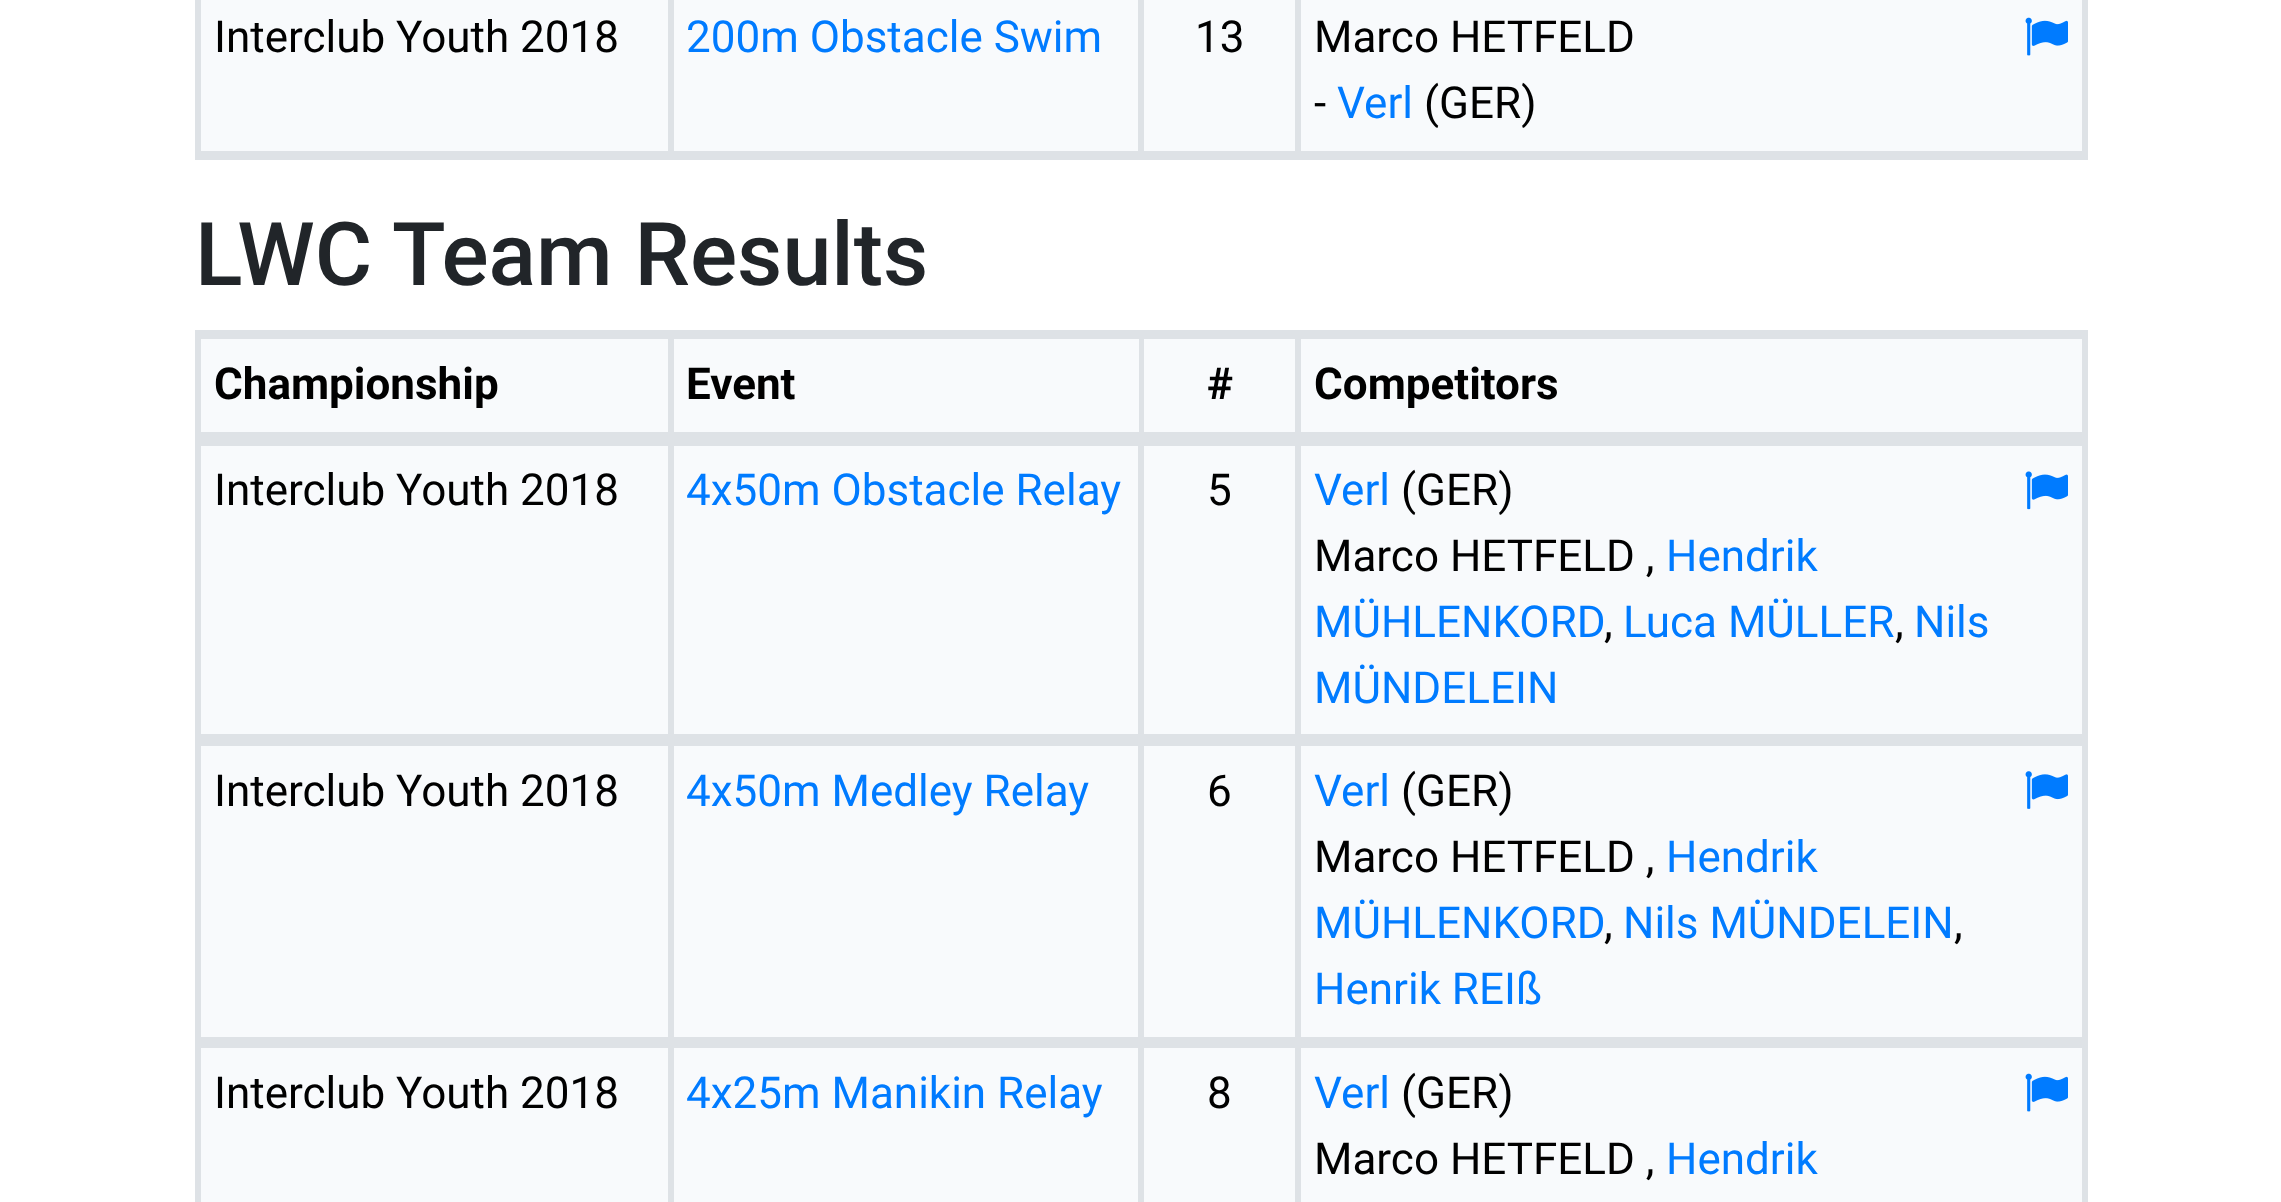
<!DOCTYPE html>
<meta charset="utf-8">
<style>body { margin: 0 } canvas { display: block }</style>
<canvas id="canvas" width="2281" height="1202"></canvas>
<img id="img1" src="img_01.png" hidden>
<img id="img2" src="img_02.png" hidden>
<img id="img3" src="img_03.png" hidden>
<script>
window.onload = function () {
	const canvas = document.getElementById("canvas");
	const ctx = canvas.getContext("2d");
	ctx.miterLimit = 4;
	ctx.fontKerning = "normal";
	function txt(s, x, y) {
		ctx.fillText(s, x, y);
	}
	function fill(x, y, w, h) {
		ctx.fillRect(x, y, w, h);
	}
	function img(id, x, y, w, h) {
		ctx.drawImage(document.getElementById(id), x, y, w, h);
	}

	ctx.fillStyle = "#FFFFFF";
	fill(0, 0, 2281, 1202);
	ctx.fillStyle = "#DEE2E6";
	fill(2085, 0, 3, 160);
	fill(195, 157, 1892, 3);
	fill(195, 0, 3, 160);
	fill(198, 154, 1887, 3);
	ctx.fillStyle = "#F8FAFC";
	ctx.beginPath();
	ctx.rect(199.5, -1.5, 470, 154);
	ctx.fill();
	ctx.strokeStyle = "#DEE2E6";
	ctx.lineWidth = 3;
	ctx.stroke();
	ctx.beginPath();
	ctx.rect(672.5, -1.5, 467, 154);
	ctx.fill();
	ctx.stroke();
	ctx.beginPath();
	ctx.rect(1142.5, -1.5, 154, 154);
	ctx.fill();
	ctx.stroke();
	ctx.beginPath();
	ctx.rect(1299.5, -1.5, 784, 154);
	ctx.fill();
	ctx.stroke();
	img("img1", 2025, 17, 43, 39);
	ctx.fillStyle = "#DEE2E6";
	fill(195, 330, 1892, 3);
	fill(2085, 330, 3, 872);
	fill(195, 330, 3, 872);
	fill(198, 333, 1887, 3);
	fill(198, 438, 1887, 5);
	ctx.fillStyle = "#F8FAFC";
	fill(201, 339, 467, 93);
	ctx.fillStyle = "#DEE2E6";
	fill(198, 336, 1887, 3);
	fill(668, 336, 3, 101);
	fill(198, 432, 473, 6);
	fill(198, 336, 3, 101);
	ctx.fillStyle = "#F8FAFC";
	fill(674, 339, 465, 93);
	ctx.fillStyle = "#DEE2E6";
	fill(1139, 336, 2, 101);
	fill(671, 432, 470, 6);
	fill(671, 336, 3, 101);
	ctx.fillStyle = "#F8FAFC";
	fill(1144, 339, 151, 93);
	ctx.fillStyle = "#DEE2E6";
	fill(1295, 336, 3, 101);
	fill(1141, 432, 157, 6);
	fill(1141, 336, 3, 101);
	ctx.fillStyle = "#F8FAFC";
	fill(1301, 339, 781, 93);
	ctx.fillStyle = "#DEE2E6";
	fill(2082, 336, 3, 101);
	fill(1298, 432, 787, 6);
	fill(1298, 336, 3, 101);
	fill(198, 737, 1887, 6);
	ctx.fillStyle = "#F8FAFC";
	ctx.beginPath();
	ctx.rect(199.5, 444.5, 470, 291);
	ctx.fill();
	ctx.stroke();
	ctx.beginPath();
	ctx.rect(672.5, 444.5, 467, 291);
	ctx.fill();
	ctx.stroke();
	ctx.beginPath();
	ctx.rect(1142.5, 444.5, 154, 291);
	ctx.fill();
	ctx.stroke();
	ctx.beginPath();
	ctx.rect(1299.5, 444.5, 784, 291);
	ctx.fill();
	ctx.stroke();
	img("img2", 2025, 471, 43, 39);
	ctx.fillStyle = "#DEE2E6";
	fill(198, 1040, 1887, 5);
	ctx.fillStyle = "#F8FAFC";
	ctx.beginPath();
	ctx.rect(199.5, 744.5, 470, 294);
	ctx.fill();
	ctx.stroke();
	ctx.beginPath();
	ctx.rect(672.5, 744.5, 467, 294);
	ctx.fill();
	ctx.stroke();
	ctx.beginPath();
	ctx.rect(1142.5, 744.5, 154, 294);
	ctx.fill();
	ctx.stroke();
	ctx.beginPath();
	ctx.rect(1299.5, 744.5, 784, 294);
	ctx.fill();
	ctx.stroke();
	img("img3", 2025, 771, 43, 38);
	ctx.beginPath();
	ctx.rect(199.5, 1046.5, 470, 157);
	ctx.fill();
	ctx.stroke();
	ctx.beginPath();
	ctx.rect(672.5, 1046.5, 467, 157);
	ctx.fill();
	ctx.stroke();
	ctx.beginPath();
	ctx.rect(1142.5, 1046.5, 154, 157);
	ctx.fill();
	ctx.stroke();
	ctx.beginPath();
	ctx.rect(1299.5, 1046.5, 784, 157);
	ctx.fill();
	ctx.stroke();
	img("img1", 2025, 1073, 43, 39);
	ctx.font = "44px Roboto";
	ctx.fillStyle = "#000000";
	txt("Interclub Youth 2018", 214, 52);
	ctx.fillStyle = "#007BFF";
	txt("200m Obstacle Swim", 686, 52);
	ctx.fillStyle = "#000000";
	txt("13", 1195, 52);
	txt("Marco HETFELD", 1314, 52);
	txt("-", 1314, 118);
	ctx.fillStyle = "#007BFF";
	txt("Verl", 1337, 118);
	ctx.fillStyle = "#000000";
	txt("(GER)", 1424, 118);
	ctx.font = "500 88px Roboto";
	ctx.fillStyle = "#212529";
	txt("LWC Team Results", 195, 285);
	ctx.font = "bold 44px Roboto";
	ctx.fillStyle = "#000000";
	txt("Championship", 214, 399);
	txt("Event", 686, 399);
	txt("#", 1207, 399);
	txt("Competitors", 1314, 399);
	ctx.font = "44px Roboto";
	txt("Interclub Youth 2018", 214, 505);
	ctx.fillStyle = "#007BFF";
	txt("4x50m Obstacle Relay", 686, 505);
	ctx.fillStyle = "#000000";
	txt("5", 1207, 505);
	ctx.fillStyle = "#007BFF";
	txt("Verl", 1314, 505);
	ctx.fillStyle = "#000000";
	txt("(GER)", 1401, 505);
	txt("Marco HETFELD ,", 1314, 571);
	ctx.fillStyle = "#007BFF";
	txt("Hendrik", 1666, 571);
	txt("MÜHLENKORD", 1314, 637);
	ctx.fillStyle = "#000000";
	txt(",", 1604, 637);
	ctx.fillStyle = "#007BFF";
	txt("Luca MÜLLER", 1623, 637);
	ctx.fillStyle = "#000000";
	txt(",", 1895, 637);
	ctx.fillStyle = "#007BFF";
	txt("Nils", 1914, 637);
	txt("MÜNDELEIN", 1314, 703);
	ctx.fillStyle = "#000000";
	txt("Interclub Youth 2018", 214, 806);
	ctx.fillStyle = "#007BFF";
	txt("4x50m Medley Relay", 686, 806);
	ctx.fillStyle = "#000000";
	txt("6", 1207, 806);
	ctx.fillStyle = "#007BFF";
	txt("Verl", 1314, 806);
	ctx.fillStyle = "#000000";
	txt("(GER)", 1401, 806);
	txt("Marco HETFELD ,", 1314, 872);
	ctx.fillStyle = "#007BFF";
	txt("Hendrik", 1666, 872);
	txt("MÜHLENKORD", 1314, 938);
	ctx.fillStyle = "#000000";
	txt(",", 1604, 938);
	ctx.fillStyle = "#007BFF";
	txt("Nils MÜNDELEIN", 1623, 938);
	ctx.fillStyle = "#000000";
	txt(",", 1954, 938);
	ctx.fillStyle = "#007BFF";
	txt("Henrik REIß", 1314, 1004);
	ctx.fillStyle = "#000000";
	txt("Interclub Youth 2018", 214, 1108);
	ctx.fillStyle = "#007BFF";
	txt("4x25m Manikin Relay", 686, 1108);
	ctx.fillStyle = "#000000";
	txt("8", 1207, 1108);
	ctx.fillStyle = "#007BFF";
	txt("Verl", 1314, 1108);
	ctx.fillStyle = "#000000";
	txt("(GER)", 1401, 1108);
	txt("Marco HETFELD ,", 1314, 1174);
	ctx.fillStyle = "#007BFF";
	txt("Hendrik", 1666, 1174);
};
</script>
